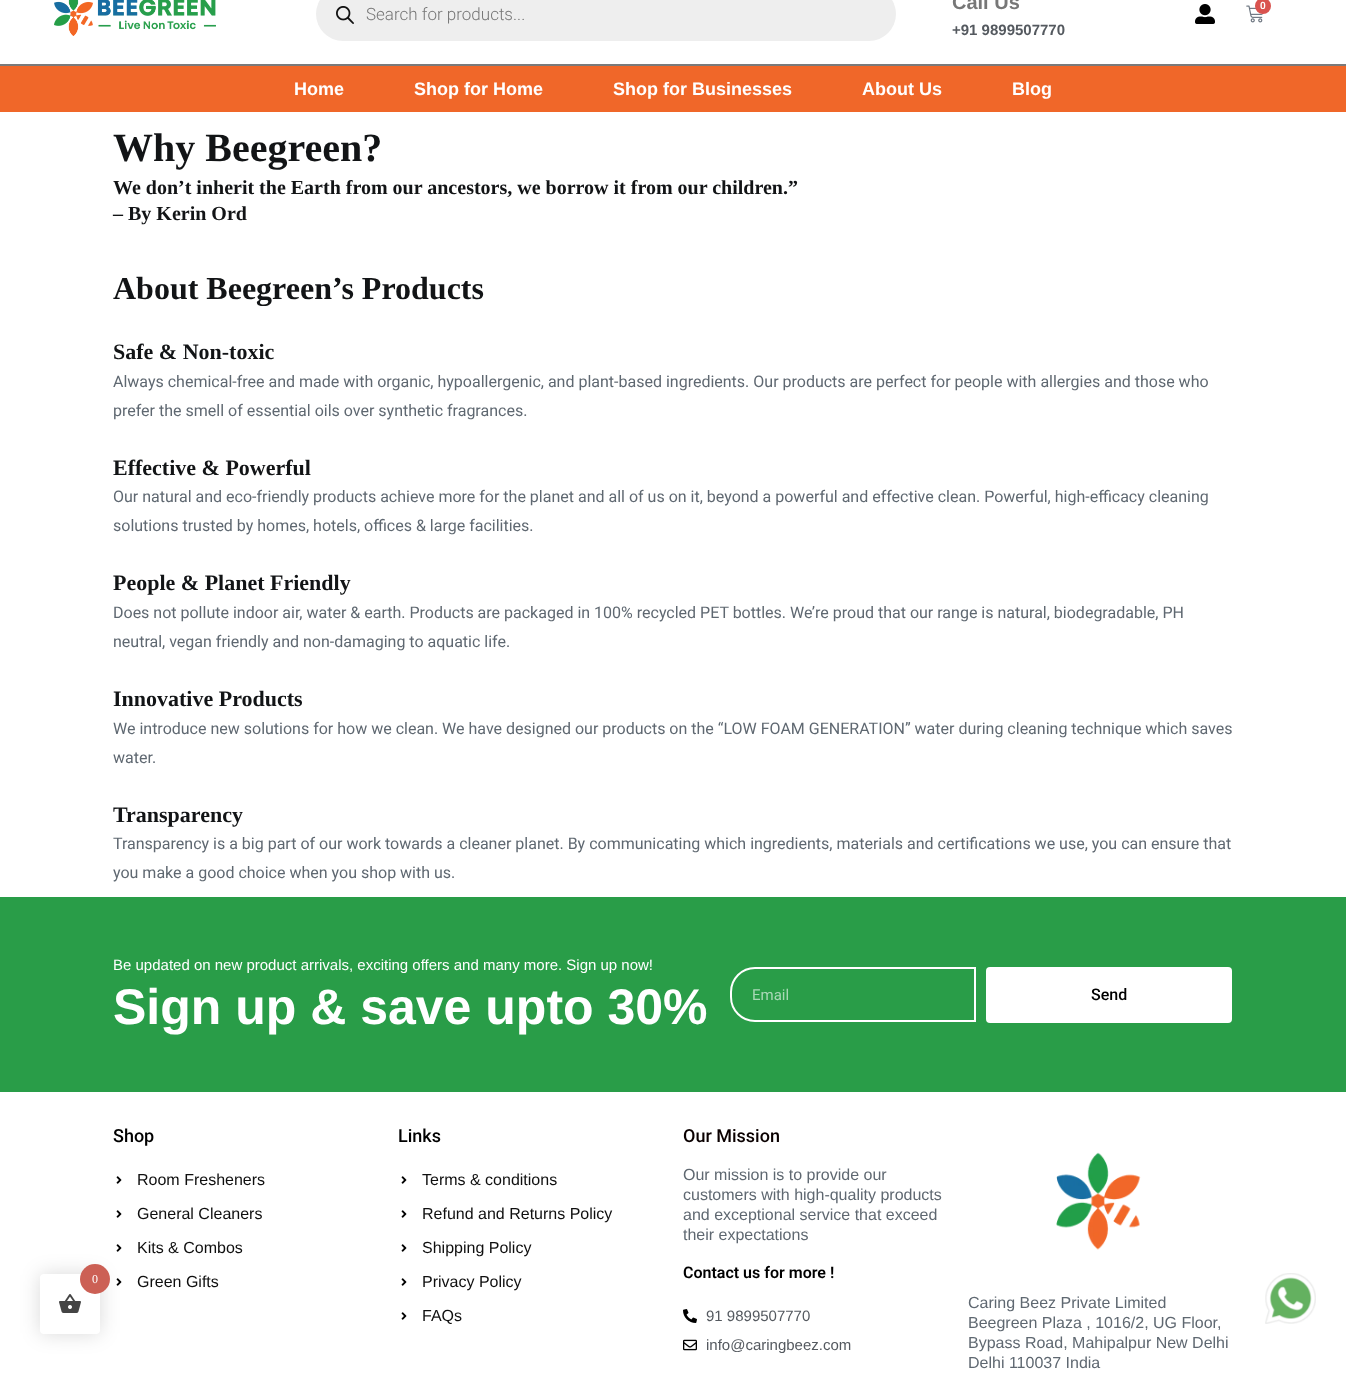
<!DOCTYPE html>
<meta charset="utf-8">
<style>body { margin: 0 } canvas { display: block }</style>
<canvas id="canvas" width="1346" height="1374"></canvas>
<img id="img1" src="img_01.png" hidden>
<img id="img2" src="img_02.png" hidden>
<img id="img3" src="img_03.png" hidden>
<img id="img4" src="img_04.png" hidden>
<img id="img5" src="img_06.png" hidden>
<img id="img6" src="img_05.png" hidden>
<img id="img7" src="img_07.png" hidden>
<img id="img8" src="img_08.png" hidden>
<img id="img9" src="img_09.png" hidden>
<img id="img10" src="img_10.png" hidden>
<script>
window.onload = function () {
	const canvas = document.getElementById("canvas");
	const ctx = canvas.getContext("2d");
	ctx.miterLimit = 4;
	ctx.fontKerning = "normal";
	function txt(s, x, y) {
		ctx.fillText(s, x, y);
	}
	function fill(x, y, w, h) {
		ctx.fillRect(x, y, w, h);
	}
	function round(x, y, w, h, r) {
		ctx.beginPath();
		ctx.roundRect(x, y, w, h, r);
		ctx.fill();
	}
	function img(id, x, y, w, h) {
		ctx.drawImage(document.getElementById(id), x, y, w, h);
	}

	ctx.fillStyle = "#FFFFFF";
	fill(0, 0, 1346, 1374);
	ctx.fillStyle = "#7A7A7A";
	fill(0, 64, 1346, 2);
	img("img1", 54, 0, 162, 36);
	ctx.fillStyle = "#EEEEEE";
	round(316, -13, 580, 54, 27);
	img("img2", 336, 6, 18, 18);
	img("img3", 1195, 4, 20, 20);
	img("img4", 1246, 5, 18, 18);
	ctx.fillStyle = "#D9534F";
	ctx.beginPath();
	ctx.arc(1263, 6, 8, 0, Math.PI * 2);
	ctx.fill();
	ctx.fillStyle = "#F06729";
	fill(0, 66, 1346, 46);
	img("img5", 116, 1244, 6, 8);
	img("img5", 116, 1278, 6, 8);
	ctx.fillStyle = "rgba(0, 0, 0, 0.15)";
	ctx.filter = "blur(10px)";
	ctx.beginPath();
	ctx.roundRect(40, 1274, 60, 60, 4);
	ctx.fill();
	ctx.filter = "none";
	ctx.fillStyle = "#FFFFFF";
	round(40, 1274, 60, 60, 4);
	ctx.fillStyle = "#CC6055";
	ctx.beginPath();
	ctx.arc(95, 1279, 15, 0, Math.PI * 2);
	ctx.fill();
	img("img6", 59, 1294, 22, 19);
	ctx.fillStyle = "#299D48";
	fill(0, 897, 1346, 195);
	ctx.beginPath();
	ctx.roundRect(731, 968, 244, 53, [24, 0, 0, 24]);
	ctx.strokeStyle = "#FFFFFF";
	ctx.lineWidth = 2;
	ctx.stroke();
	ctx.fillStyle = "#FFFFFF";
	round(986, 967, 246, 56, 4);
	img("img5", 116, 1176, 6, 8);
	img("img5", 116, 1210, 6, 8);
	img("img5", 401, 1176, 6, 8);
	img("img5", 401, 1210, 6, 8);
	img("img5", 401, 1244, 6, 8);
	img("img5", 401, 1278, 6, 8);
	img("img5", 401, 1312, 6, 8);
	img("img7", 683, 1309, 14, 14);
	img("img8", 683, 1339, 14, 12);
	img("img9", 1056, 1152, 85, 98);
	img("img10", 1265, 1273, 51, 51);
	ctx.font = "300 17px Roboto";
	ctx.fillStyle = "#777777";
	txt("Search for products...", 366, 20);
	ctx.font = "bold 20px Liberation Sans";
	txt("Call Us", 952, 9);
	ctx.font = "bold 15px Liberation Sans";
	ctx.fillStyle = "#54595F";
	txt("+91 9899507770", 952, 35);
	ctx.font = "600 10px Roboto";
	ctx.fillStyle = "#FFFFFF";
	txt("0", 1260, 9);
	ctx.font = "bold 18px Liberation Sans";
	txt("Home", 294, 95);
	txt("Shop for Home", 414, 95);
	txt("Shop for Businesses", 613, 95);
	txt("About Us", 862, 95);
	txt("Blog", 1012, 95);
	ctx.font = "bold 40px Liberation Serif";
	ctx.fillStyle = "#121416";
	txt("Why Beegreen?", 113, 161);
	ctx.font = "bold 20px Liberation Serif";
	txt("We don’t inherit the Earth from our ancestors, we borrow it from our children.”", 113, 194);
	txt("– By Kerin Ord", 113, 220);
	ctx.font = "bold 32px Liberation Serif";
	txt("About Beegreen’s Products", 113, 299);
	ctx.font = "bold 22px Liberation Serif";
	txt("Safe & Non-toxic", 113, 359);
	ctx.font = "16px Roboto";
	ctx.fillStyle = "#5F6871";
	txt("Always chemical-free and made with organic, hypoallergenic, and plant-based ingredients. Our products are perfect for people with allergies and those who", 113, 387);
	txt("prefer the smell of essential oils over synthetic fragrances.", 113, 416);
	ctx.font = "bold 22px Liberation Serif";
	ctx.fillStyle = "#121416";
	txt("Effective & Powerful", 113, 475);
	ctx.font = "16px Roboto";
	ctx.fillStyle = "#5F6871";
	txt("Our natural and eco-friendly products achieve more for the planet and all of us on it, beyond a powerful and effective clean. Powerful, high-efficacy cleaning", 113, 502);
	txt("solutions trusted by homes, hotels, offices & large facilities.", 113, 531);
	ctx.font = "bold 22px Liberation Serif";
	ctx.fillStyle = "#121416";
	txt("People & Planet Friendly", 113, 590);
	ctx.font = "16px Roboto";
	ctx.fillStyle = "#5F6871";
	txt("Does not pollute indoor air, water & earth. Products are packaged in 100% recycled PET bottles. We’re proud that our range is natural, biodegradable, PH", 113, 618);
	txt("neutral, vegan friendly and non-damaging to aquatic life.", 113, 647);
	ctx.font = "bold 22px Liberation Serif";
	ctx.fillStyle = "#121416";
	txt("Innovative Products", 113, 706);
	ctx.font = "16px Roboto";
	ctx.fillStyle = "#5F6871";
	txt("We introduce new solutions for how we clean. We have designed our products on the “LOW FOAM GENERATION” water during cleaning technique which saves", 113, 734);
	txt("water.", 113, 763);
	ctx.font = "bold 22px Liberation Serif";
	ctx.fillStyle = "#121416";
	txt("Transparency", 113, 822);
	ctx.font = "16px Roboto";
	ctx.fillStyle = "#5F6871";
	txt("Transparency is a big part of our work towards a cleaner planet. By communicating which ingredients, materials and certifications we use, you can ensure that", 113, 849);
	txt("you make a good choice when you shop with us.", 113, 878);
	ctx.font = "12px Liberation Serif";
	ctx.fillStyle = "#FFFFFF";
	txt("0", 92, 1283);
	ctx.font = "15px Liberation Sans";
	txt("Be updated on new product arrivals, exciting offers and many more. Sign up now!", 113, 970);
	ctx.font = "bold 50px Liberation Sans";
	txt("Sign up & save upto 30%", 113, 1024);
	ctx.font = "15px Roboto";
	ctx.fillStyle = "#A9D8B6";
	txt("Email", 752, 1000);
	ctx.font = "500 16px Roboto";
	ctx.fillStyle = "#000000";
	txt("Send", 1091, 1000);
	ctx.font = "500 18px Roboto";
	txt("Shop", 113, 1142);
	ctx.font = "16px Liberation Sans";
	ctx.fillStyle = "#0F0F0F";
	txt("Room Fresheners", 137, 1185);
	txt("General Cleaners", 137, 1219);
	txt("Kits & Combos", 137, 1253);
	txt("Green Gifts", 137, 1287);
	ctx.font = "500 18px Roboto";
	ctx.fillStyle = "#000000";
	txt("Links", 398, 1142);
	ctx.font = "16px Liberation Sans";
	ctx.fillStyle = "#0F0F0F";
	txt("Terms & conditions", 422, 1185);
	txt("Refund and Returns Policy", 422, 1219);
	txt("Shipping Policy", 422, 1253);
	txt("Privacy Policy", 422, 1287);
	txt("FAQs", 422, 1321);
	ctx.font = "500 18px Roboto";
	ctx.fillStyle = "#0A0000";
	txt("Our Mission", 683, 1142);
	ctx.font = "16px Liberation Sans";
	ctx.fillStyle = "#5F6871";
	txt("Our mission is to provide our", 683, 1180);
	txt("customers with high-quality products", 683, 1200);
	txt("and exceptional service that exceed", 683, 1220);
	txt("their expectations", 683, 1240);
	ctx.font = "600 16px Roboto";
	ctx.fillStyle = "#000000";
	txt("Contact us for more !", 683, 1278);
	ctx.font = "15px Liberation Sans";
	ctx.fillStyle = "#54595F";
	txt("91 9899507770", 706, 1321);
	txt("info@caringbeez.com", 706, 1350);
	ctx.font = "16px Liberation Sans";
	ctx.fillStyle = "#5F6871";
	txt("Caring Beez Private Limited", 968, 1308);
	txt("Beegreen Plaza , 1016/2, UG Floor,", 968, 1328);
	txt("Bypass Road, Mahipalpur New Delhi", 968, 1348);
	txt("Delhi 110037 India", 968, 1368);
};
</script>
